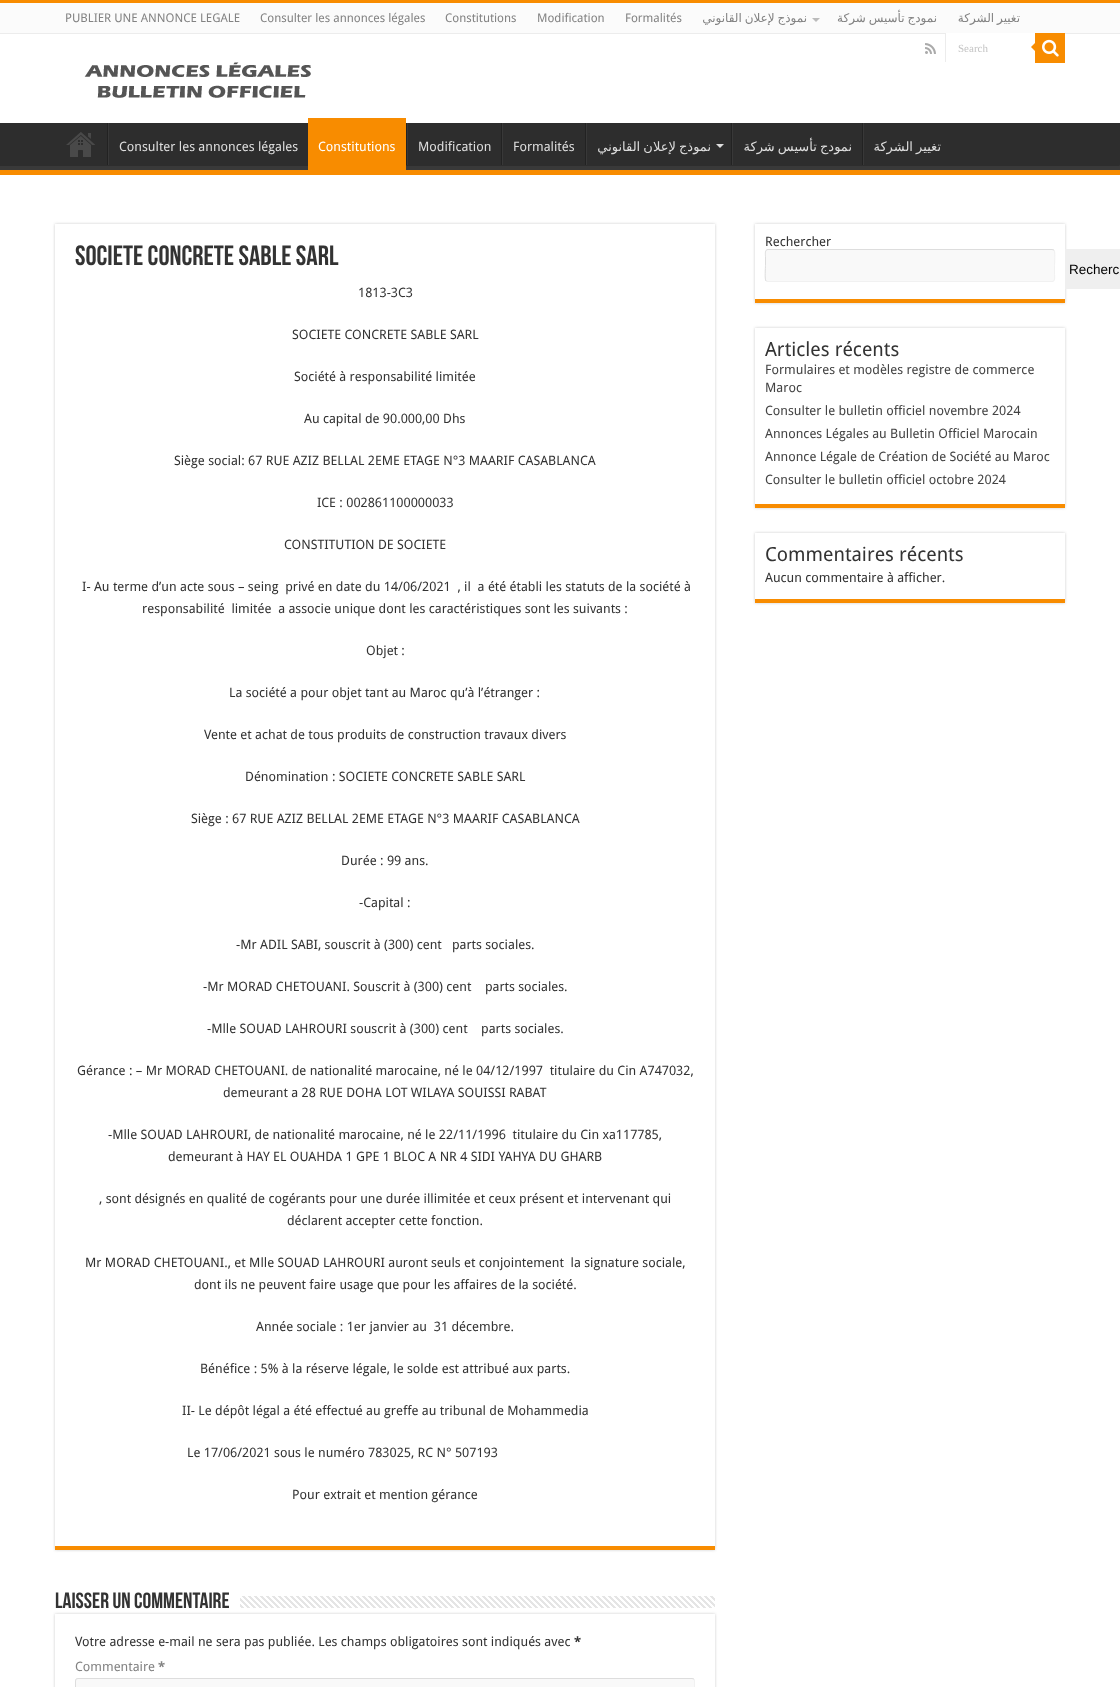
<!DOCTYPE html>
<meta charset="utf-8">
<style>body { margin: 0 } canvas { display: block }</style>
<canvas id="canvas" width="1120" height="1687"></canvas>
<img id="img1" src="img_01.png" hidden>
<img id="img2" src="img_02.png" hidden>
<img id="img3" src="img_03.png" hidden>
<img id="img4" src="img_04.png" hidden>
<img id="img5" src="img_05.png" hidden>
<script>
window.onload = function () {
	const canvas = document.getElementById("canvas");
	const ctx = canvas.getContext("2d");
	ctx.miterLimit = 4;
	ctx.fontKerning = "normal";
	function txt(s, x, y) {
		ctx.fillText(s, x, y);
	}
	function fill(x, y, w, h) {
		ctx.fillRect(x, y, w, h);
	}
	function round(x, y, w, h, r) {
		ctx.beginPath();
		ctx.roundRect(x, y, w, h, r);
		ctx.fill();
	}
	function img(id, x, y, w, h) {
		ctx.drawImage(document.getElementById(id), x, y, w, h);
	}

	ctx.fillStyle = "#FFFFFF";
	fill(0, 0, 1120, 1687);
	ctx.fillStyle = "#F88C00";
	fill(0, 0, 1120, 3);
	ctx.fillStyle = "#FBFBFB";
	fill(0, 3, 1120, 30);
	ctx.fillStyle = "#ECECEC";
	fill(0, 33, 1120, 1);
	ctx.fillStyle = "#BBBBBB";
	ctx.beginPath();
	ctx.moveTo(812, 18);
	ctx.lineTo(820, 18);
	ctx.lineTo(816, 22);
	ctx.closePath();
	ctx.fill();
	img("img1", 925, 43, 11, 11);
	ctx.fillStyle = "#FFFFFF";
	fill(946, 33, 89, 1);
	ctx.fillStyle = "#ECECEC";
	fill(945, 33, 1, 29);
	ctx.fillStyle = "#F88C00";
	fill(1035, 33, 30, 30);
	img("img2", 1042, 39, 17, 18);
	ctx.beginPath();
	ctx.moveTo(1035, 43);
	ctx.lineTo(1035, 51);
	ctx.lineTo(1031, 47);
	ctx.closePath();
	ctx.fill();
	img("img3", 84, 62, 227, 36);
	ctx.fillStyle = "#2D2D2D";
	fill(0, 123, 1120, 43);
	ctx.save();
	ctx.beginPath();
	ctx.rect(0, 123, 1120, 47);
	ctx.clip();
	ctx.fillStyle = "#393939";
	ctx.beginPath();
	ctx.moveTo(-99, 24);
	ctx.lineTo(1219, 24);
	ctx.lineTo(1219, 269);
	ctx.lineTo(-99, 269);
	ctx.closePath();
	ctx.moveTo(-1, 117);
	ctx.lineTo(1119, 117);
	ctx.bezierCurveTo(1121, 118, 1120, 132, 1120, 134);
	ctx.lineTo(1120, 165);
	ctx.lineTo(1119, 166);
	ctx.lineTo(-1, 166);
	ctx.lineTo(-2, 165);
	ctx.lineTo(-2, 117);
	ctx.closePath();
	ctx.fill("evenodd");
	ctx.restore();
	ctx.fillStyle = "#F88C00";
	fill(0, 170, 1120, 5);
	img("img4", 66, 132, 29, 25);
	ctx.fillStyle = "#222222";
	fill(107, 123, 1, 42);
	ctx.fillStyle = "#383838";
	fill(108, 123, 1, 42);
	ctx.fillStyle = "#F88C00";
	fill(308, 118, 98, 52);
	ctx.fillStyle = "#222222";
	fill(406, 123, 1, 42);
	ctx.fillStyle = "#383838";
	fill(407, 123, 1, 42);
	ctx.fillStyle = "#222222";
	fill(501, 123, 1, 42);
	ctx.fillStyle = "#383838";
	fill(502, 123, 1, 42);
	ctx.fillStyle = "#222222";
	fill(585, 123, 1, 42);
	ctx.fillStyle = "#383838";
	fill(586, 123, 1, 42);
	ctx.fillStyle = "#DDDDDD";
	ctx.beginPath();
	ctx.moveTo(716, 144);
	ctx.lineTo(724, 144);
	ctx.lineTo(720, 148);
	ctx.closePath();
	ctx.fill();
	ctx.fillStyle = "#222222";
	fill(731, 123, 1, 42);
	ctx.fillStyle = "#383838";
	fill(732, 123, 1, 42);
	ctx.fillStyle = "#222222";
	fill(862, 123, 1, 42);
	ctx.fillStyle = "#383838";
	fill(863, 123, 1, 42);
	ctx.save();
	ctx.beginPath();
	ctx.moveTo(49, 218);
	ctx.lineTo(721, 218);
	ctx.lineTo(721, 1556);
	ctx.lineTo(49, 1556);
	ctx.closePath();
	ctx.moveTo(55, 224);
	ctx.lineTo(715, 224);
	ctx.lineTo(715, 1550);
	ctx.lineTo(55, 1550);
	ctx.closePath();
	ctx.clip("evenodd");
	ctx.fillStyle = "#CACACA";
	ctx.filter = "blur(1.5px)";
	ctx.beginPath();
	ctx.rect(55, 224, 660, 1326);
	ctx.fill();
	ctx.filter = "none";
	ctx.restore();
	ctx.fillStyle = "#F88C00";
	fill(55, 1546, 660, 4);
	img("img5", 240, 1596, 475, 12);
	ctx.save();
	ctx.beginPath();
	ctx.moveTo(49, 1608);
	ctx.lineTo(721, 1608);
	ctx.lineTo(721, 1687);
	ctx.lineTo(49, 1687);
	ctx.closePath();
	ctx.moveTo(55, 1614);
	ctx.lineTo(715, 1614);
	ctx.lineTo(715, 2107);
	ctx.lineTo(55, 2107);
	ctx.closePath();
	ctx.clip("evenodd");
	ctx.fillStyle = "#CACACA";
	ctx.filter = "blur(1.5px)";
	ctx.beginPath();
	ctx.rect(55, 1614, 660, 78);
	ctx.fill();
	ctx.filter = "none";
	ctx.restore();
	ctx.fillStyle = "#F9F9F9";
	round(75, 1678, 620, 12, 3);
	ctx.beginPath();
	ctx.moveTo(694, 1679);
	ctx.lineTo(694.5, 1681);
	ctx.lineTo(694.5, 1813);
	ctx.lineTo(694, 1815);
	ctx.lineTo(692, 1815.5);
	ctx.lineTo(78, 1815.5);
	ctx.lineTo(76, 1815);
	ctx.strokeStyle = "#F1F1F1";
	ctx.stroke();
	ctx.beginPath();
	ctx.moveTo(76, 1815);
	ctx.lineTo(75.5, 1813);
	ctx.lineTo(75.5, 1681);
	ctx.lineTo(76, 1679);
	ctx.lineTo(78, 1678.5);
	ctx.lineTo(692, 1678.5);
	ctx.lineTo(694, 1679);
	ctx.strokeStyle = "#DDDDDD";
	ctx.stroke();
	ctx.save();
	ctx.beginPath();
	ctx.moveTo(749, 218);
	ctx.lineTo(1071, 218);
	ctx.lineTo(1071, 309);
	ctx.lineTo(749, 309);
	ctx.closePath();
	ctx.moveTo(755, 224);
	ctx.lineTo(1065, 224);
	ctx.lineTo(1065, 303);
	ctx.lineTo(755, 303);
	ctx.closePath();
	ctx.clip("evenodd");
	ctx.fillStyle = "#CACACA";
	ctx.filter = "blur(1.5px)";
	ctx.beginPath();
	ctx.rect(755, 224, 310, 79);
	ctx.fill();
	ctx.filter = "none";
	ctx.restore();
	ctx.fillStyle = "#F88C00";
	fill(755, 299, 310, 4);
	ctx.fillStyle = "#F9F9F9";
	round(765, 249, 290, 33, 3);
	ctx.beginPath();
	ctx.moveTo(1054, 250);
	ctx.bezierCurveTo(1055.5, 252, 1054.5, 263, 1054.5, 265.5);
	ctx.lineTo(1054.5, 274.5);
	ctx.bezierCurveTo(1054.5, 276.5, 1055.5, 281.5, 1052, 281.5);
	ctx.lineTo(768, 281.5);
	ctx.lineTo(766, 281);
	ctx.strokeStyle = "#F1F1F1";
	ctx.stroke();
	ctx.beginPath();
	ctx.moveTo(766, 281);
	ctx.bezierCurveTo(764.5, 279, 765.5, 268, 765.5, 265.5);
	ctx.lineTo(765.5, 256.5);
	ctx.bezierCurveTo(765.5, 254.5, 764.5, 249.5, 768, 249.5);
	ctx.lineTo(1052, 249.5);
	ctx.lineTo(1054, 250);
	ctx.strokeStyle = "#DDDDDD";
	ctx.stroke();
	ctx.fillStyle = "#EFEFEF";
	fill(1065, 249, 55, 40);
	ctx.save();
	ctx.beginPath();
	ctx.moveTo(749, 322);
	ctx.lineTo(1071, 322);
	ctx.lineTo(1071, 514);
	ctx.lineTo(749, 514);
	ctx.closePath();
	ctx.moveTo(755, 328);
	ctx.lineTo(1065, 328);
	ctx.lineTo(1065, 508);
	ctx.lineTo(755, 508);
	ctx.closePath();
	ctx.clip("evenodd");
	ctx.fillStyle = "#CACACA";
	ctx.filter = "blur(1.5px)";
	ctx.beginPath();
	ctx.rect(755, 328, 310, 180);
	ctx.fill();
	ctx.filter = "none";
	ctx.restore();
	ctx.fillStyle = "#F88C00";
	fill(755, 504, 310, 4);
	ctx.save();
	ctx.beginPath();
	ctx.moveTo(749, 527);
	ctx.lineTo(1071, 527);
	ctx.lineTo(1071, 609);
	ctx.lineTo(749, 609);
	ctx.closePath();
	ctx.moveTo(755, 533);
	ctx.lineTo(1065, 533);
	ctx.lineTo(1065, 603);
	ctx.lineTo(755, 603);
	ctx.closePath();
	ctx.clip("evenodd");
	ctx.fillStyle = "#CACACA";
	ctx.filter = "blur(1.5px)";
	ctx.beginPath();
	ctx.rect(755, 533, 310, 70);
	ctx.fill();
	ctx.filter = "none";
	ctx.restore();
	fill(755, 599, 310, 4);
	ctx.font = "12px Droid Sans";
	ctx.fillStyle = "#838383";
	txt("PUBLIER UNE ANNONCE LEGALE", 65, 22);
	txt("Consulter les annonces légales", 260, 22);
	txt("Constitutions", 445, 22);
	txt("Modification", 537, 22);
	txt("Formalités", 625, 22);
	ctx.wordSpacing = "-1px";
	ctx.direction = "rtl";
	ctx.font = "12px DejaVu Sans";
	txt("نموذج لإعلان القانوني", 807, 22);
	txt("نمودج تأسيس شركة", 937, 22);
	txt("تغيير الشركة", 1020, 22);
	ctx.wordSpacing = "0px";
	ctx.direction = "ltr";
	ctx.font = "11px Liberation Serif";
	ctx.fillStyle = "#C5C5C5";
	txt("Search", 958, 52);
	ctx.font = "13px Droid Sans";
	ctx.fillStyle = "#DDDDDD";
	txt("Consulter les annonces légales", 119, 151);
	ctx.fillStyle = "#FFFFFF";
	txt("Constitutions", 318, 151);
	ctx.fillStyle = "#DDDDDD";
	txt("Modification", 418, 151);
	txt("Formalités", 513, 151);
	ctx.wordSpacing = "-1px";
	ctx.direction = "rtl";
	ctx.font = "13px DejaVu Sans";
	txt("نموذج لإعلان القانوني", 711, 151);
	txt("نمودج تأسيس شركة", 852, 151);
	txt("تغيير الشركة", 941, 151);
	ctx.wordSpacing = "0px";
	ctx.direction = "ltr";
	ctx.font = "bold 28px Bebas Neue";
	ctx.fillStyle = "#333333";
	txt("SOCIETE CONCRETE SABLE SARL", 75, 265);
	ctx.font = "13px Droid Sans";
	txt("1813-3C3", 358, 297);
	txt("SOCIETE CONCRETE SABLE SARL", 292, 339);
	txt("Société à responsabilité limitée", 294, 381);
	txt("Au capital de 90.000,00 Dhs", 304, 423);
	txt("Siège social: 67 RUE AZIZ BELLAL 2EME ETAGE N°3 MAARIF CASABLANCA", 174, 465);
	txt("ICE : 002861100000033", 317, 507);
	txt("CONSTITUTION DE SOCIETE", 284, 549);
	txt("I- Au terme d’un acte sous – seing  privé en date du 14/06/2021  , il  a été établi les statuts de la société à", 82, 591);
	txt("responsabilité  limitée  a associe unique dont les caractéristiques sont les suivants :", 142, 613);
	txt("Objet :", 366, 655);
	txt("La société a pour objet tant au Maroc qu’à l’étranger :", 229, 697);
	txt("Vente et achat de tous produits de construction travaux divers", 204, 739);
	txt("Dénomination : SOCIETE CONCRETE SABLE SARL", 245, 781);
	txt("Siège : 67 RUE AZIZ BELLAL 2EME ETAGE N°3 MAARIF CASABLANCA", 191, 823);
	txt("Durée : 99 ans.", 341, 865);
	txt("-Capital :", 359, 907);
	txt("-Mr ADIL SABI, souscrit à (300) cent   parts sociales.", 236, 949);
	txt("-Mr MORAD CHETOUANI. Souscrit à (300) cent    parts sociales.", 203, 991);
	txt("-Mlle SOUAD LAHROURI souscrit à (300) cent    parts sociales.", 207, 1033);
	txt("Gérance : – Mr MORAD CHETOUANI. de nationalité marocaine, né le 04/12/1997  titulaire du Cin A747032,", 77, 1075);
	txt("demeurant a 28 RUE DOHA LOT WILAYA SOUISSI RABAT", 223, 1097);
	txt("-Mlle SOUAD LAHROURI, de nationalité marocaine, né le 22/11/1996  titulaire du Cin xa117785,", 108, 1139);
	txt("demeurant à HAY EL OUAHDA 1 GPE 1 BLOC A NR 4 SIDI YAHYA DU GHARB", 168, 1161);
	txt(", sont désignés en qualité de cogérants pour une durée illimitée et ceux présent et intervenant qui", 99, 1203);
	txt("déclarent accepter cette fonction.", 287, 1225);
	txt("Mr MORAD CHETOUANI., et Mlle SOUAD LAHROURI auront seuls et conjointement  la signature sociale,", 85, 1267);
	txt("dont ils ne peuvent faire usage que pour les affaires de la société.", 194, 1289);
	txt("Année sociale : 1er janvier au  31 décembre.", 256, 1331);
	txt("Bénéfice : 5% à la réserve légale, le solde est attribué aux parts.", 200, 1373);
	txt("II- Le dépôt légal a été effectué au greffe au tribunal de Mohammedia", 182, 1415);
	txt("Le 17/06/2021 sous le numéro 783025, RC N° 507193", 187, 1457);
	txt("Pour extrait et mention gérance", 292, 1499);
	ctx.font = "bold 22px Bebas Neue";
	txt("Laisser un commentaire", 55, 1608);
	ctx.font = "13px Droid Sans";
	txt("Votre adresse e-mail ne sera pas publiée. Les champs obligatoires sont indiqués avec", 75, 1646);
	ctx.font = "bold 13px Droid Sans";
	txt("*", 574, 1646);
	ctx.font = "13px Droid Sans";
	ctx.fillStyle = "#838383";
	txt("Commentaire", 75, 1671);
	ctx.font = "bold 13px Droid Sans";
	txt("*", 158, 1671);
	ctx.font = "13px Droid Sans";
	ctx.fillStyle = "#333333";
	txt("Rechercher", 765, 246);
	ctx.font = "13.5px Liberation Sans";
	ctx.fillStyle = "#000000";
	txt("Recherc", 1069, 274);
	ctx.font = "19.5px Droid Sans";
	ctx.fillStyle = "#333333";
	txt("Articles récents", 765, 356);
	ctx.font = "13px Droid Sans";
	ctx.fillStyle = "#444444";
	txt("Formulaires et modèles registre de commerce", 765, 374);
	txt("Maroc", 765, 392);
	txt("Consulter le bulletin officiel novembre 2024", 765, 415);
	txt("Annonces Légales au Bulletin Officiel Marocain", 765, 438);
	txt("Annonce Légale de Création de Société au Maroc", 765, 461);
	txt("Consulter le bulletin officiel octobre 2024", 765, 484);
	ctx.font = "19.5px Droid Sans";
	ctx.fillStyle = "#333333";
	txt("Commentaires récents", 765, 561);
	ctx.font = "13px Droid Sans";
	txt("Aucun commentaire à afficher.", 765, 582);
};
</script>
